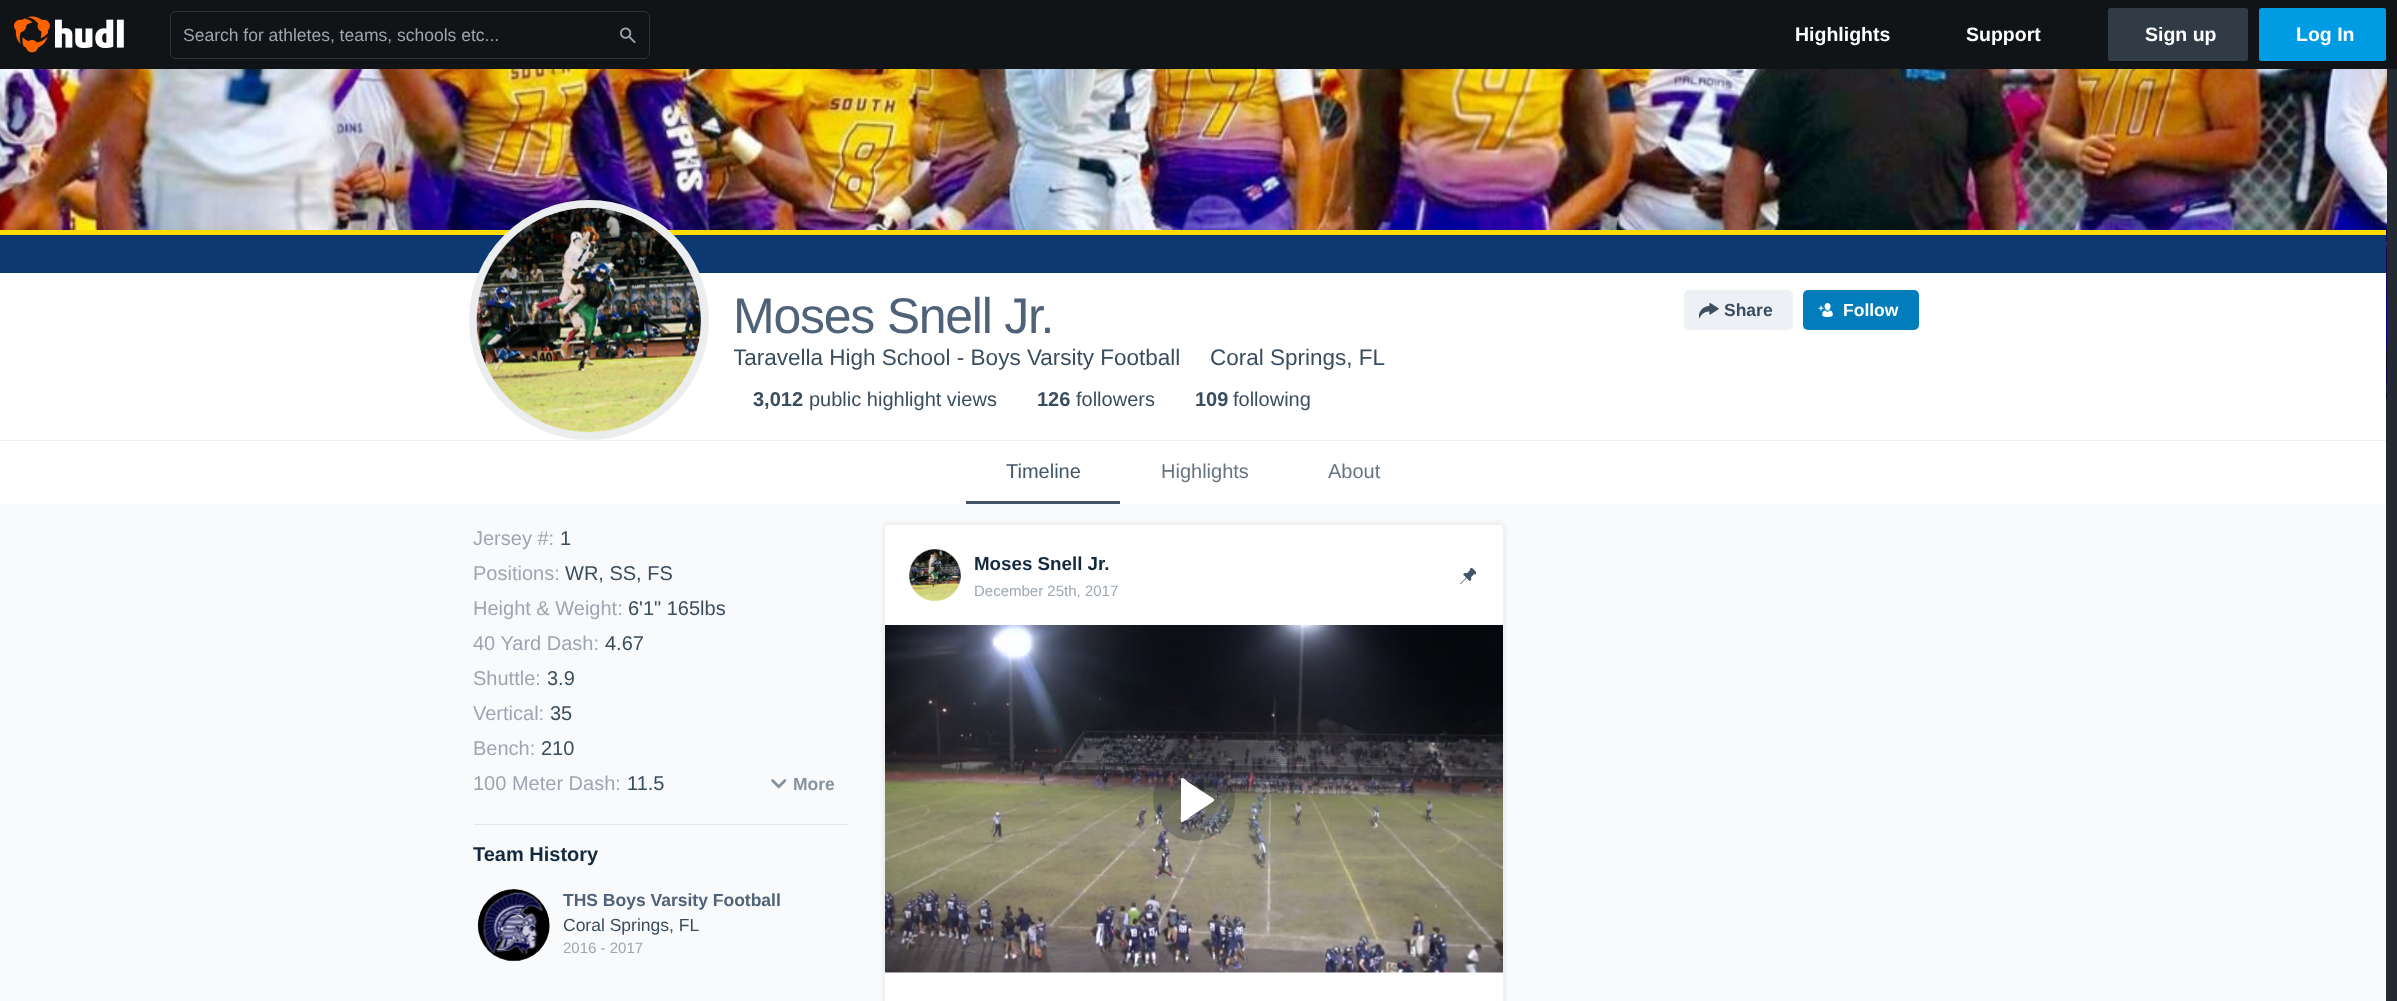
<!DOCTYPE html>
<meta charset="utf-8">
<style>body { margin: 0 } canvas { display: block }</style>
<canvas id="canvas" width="2397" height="1001"></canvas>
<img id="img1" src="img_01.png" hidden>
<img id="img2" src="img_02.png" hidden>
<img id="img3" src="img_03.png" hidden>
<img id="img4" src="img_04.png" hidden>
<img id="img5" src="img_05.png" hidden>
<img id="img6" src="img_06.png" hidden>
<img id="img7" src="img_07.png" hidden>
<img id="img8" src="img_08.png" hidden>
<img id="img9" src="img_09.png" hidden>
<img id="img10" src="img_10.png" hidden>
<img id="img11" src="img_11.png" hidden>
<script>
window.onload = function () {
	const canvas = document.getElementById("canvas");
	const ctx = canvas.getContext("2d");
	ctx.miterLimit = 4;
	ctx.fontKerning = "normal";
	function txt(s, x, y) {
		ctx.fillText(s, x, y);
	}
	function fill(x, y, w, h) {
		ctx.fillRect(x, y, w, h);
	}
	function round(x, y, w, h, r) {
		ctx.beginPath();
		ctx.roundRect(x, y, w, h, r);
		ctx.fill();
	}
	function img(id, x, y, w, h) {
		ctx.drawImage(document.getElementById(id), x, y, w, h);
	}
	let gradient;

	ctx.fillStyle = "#232A31";
	fill(0, 0, 2397, 1001);
	ctx.fillStyle = "#101417";
	fill(0, 0, 2397, 69);
	img("img1", 14, 16, 110, 37);
	ctx.beginPath();
	ctx.roundRect(170.5, 11.5, 479, 47, 5.5);
	ctx.strokeStyle = "#2C353E";
	ctx.stroke();
	img("img2", 620, 27, 16, 17);
	ctx.fillStyle = "#313B45";
	ctx.beginPath();
	ctx.roundRect(2110, 10, 136, 49, 0.5);
	ctx.fill();
	ctx.strokeStyle = "#313B45";
	ctx.lineWidth = 4;
	ctx.stroke();
	ctx.fillStyle = "#009CE3";
	ctx.beginPath();
	ctx.roundRect(2261, 10, 123, 49, 0.5);
	ctx.fill();
	ctx.strokeStyle = "#009CE3";
	ctx.stroke();
	img("img3", 0, 69, 2387, 330);
	gradient = ctx.createLinearGradient(1193, 230, 1193, 440);
	gradient.addColorStop(0, "rgba(255, 255, 255, 0.85)");
	gradient.addColorStop(0.2, "#FFFFFF");
	ctx.fillStyle = gradient;
	fill(0, 273, 2386, 167);
	ctx.fillStyle = "#EDF0F2";
	fill(0, 440, 2386, 1);
	ctx.fillStyle = "#FFDD00";
	fill(0, 230, 2386, 5);
	ctx.fillStyle = "#0C3970";
	fill(0, 235, 2386, 38);
	ctx.fillStyle = "#FFFFFF";
	ctx.beginPath();
	ctx.arc(589, 320, 120, 0, Math.PI * 2);
	ctx.fill();
	ctx.beginPath();
	ctx.arc(589, 320, 116, 0, Math.PI * 2);
	ctx.strokeStyle = "rgba(69, 82, 94, 0.1)";
	ctx.lineWidth = 8;
	ctx.stroke();
	img("img4", 476, 207, 226, 226);
	ctx.fillStyle = "#EDF1F5";
	round(1684, 290, 109, 40, 5);
	img("img5", 1699, 302, 20, 17);
	ctx.fillStyle = "#027DBB";
	round(1803, 290, 116, 40, 5);
	img("img6", 1818, 303, 15, 15);
	ctx.fillStyle = "#FFFFFF";
	fill(0, 441, 2386, 63);
	ctx.fillStyle = "#425465";
	fill(966, 501, 154, 3);
	ctx.fillStyle = "#F9FAFB";
	fill(0, 504, 2386, 497);
	img("img7", 771, 779, 16, 10);
	ctx.fillStyle = "#E4E7EB";
	fill(474, 824, 375, 1);
	img("img8", 477, 888, 73, 74);
	ctx.fillStyle = "rgba(0, 0, 0, 0.1)";
	ctx.filter = "blur(2.5px)";
	ctx.beginPath();
	ctx.roundRect(884, 524, 620, 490, 5);
	ctx.fill();
	ctx.filter = "none";
	ctx.fillStyle = "#FFFFFF";
	ctx.beginPath();
	ctx.moveTo(889, 524);
	ctx.lineTo(1499, 524);
	ctx.bezierCurveTo(1502, 524, 1504, 526, 1504, 529);
	ctx.lineTo(1504, 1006);
	ctx.lineTo(884, 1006);
	ctx.lineTo(884, 529);
	ctx.bezierCurveTo(884, 526, 886, 524, 889, 524);
	ctx.closePath();
	ctx.fill();
	ctx.beginPath();
	ctx.roundRect(884.5, 524.5, 619, 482, 4.5);
	ctx.strokeStyle = "#EDF0F2";
	ctx.lineWidth = 1;
	ctx.stroke();
	img("img9", 909, 549, 53, 52);
	img("img10", 1460, 568, 16, 16);
	img("img11", 885, 625, 618, 348);
	ctx.fillStyle = "rgba(35, 42, 49, 0.3)";
	ctx.beginPath();
	ctx.arc(1194, 800, 41, 0, Math.PI * 2);
	ctx.fill();
	ctx.fillStyle = "#FFFFFF";
	ctx.beginPath();
	ctx.moveTo(1181, 779);
	ctx.lineTo(1181, 807);
	ctx.bezierCurveTo(1181, 826, 1178, 825, 1193, 815);
	ctx.lineTo(1214, 801);
	ctx.lineTo(1214, 799);
	ctx.lineTo(1188, 782);
	ctx.bezierCurveTo(1186, 780, 1182, 776, 1181, 779);
	ctx.closePath();
	ctx.fill("evenodd");
	ctx.font = "17.5px Liberation Sans";
	ctx.fillStyle = "#9DA6B0";
	txt("Search for athletes, teams, schools etc...", 183, 41);
	ctx.font = "bold 19.5px Liberation Sans";
	ctx.fillStyle = "#FFFFFF";
	txt("Highlights", 1795, 41);
	txt("Support", 1966, 41);
	txt("Sign up", 2145, 41);
	txt("Log In", 2296, 41);
	ctx.letterSpacing = "-1.25px";
	ctx.font = "50px Liberation Sans";
	ctx.fillStyle = "#506277";
	txt("Moses Snell Jr.", 733, 333);
	ctx.letterSpacing = "0px";
	ctx.font = "bold 17.5px Liberation Sans";
	ctx.fillStyle = "#3A4D5F";
	txt("Share", 1724, 316);
	ctx.fillStyle = "#FFFFFF";
	txt("Follow", 1843, 316);
	ctx.save();
	ctx.beginPath();
	ctx.rect(734, 345, 446, 26);
	ctx.clip();
	ctx.font = "22.5px Liberation Sans";
	ctx.fillStyle = "#3A4D5F";
	txt("Taravella High School - Boys Varsity Football", 733, 365);
	ctx.restore();
	ctx.font = "22.5px Liberation Sans";
	ctx.fillStyle = "#3A4D5F";
	txt("Coral Springs, FL", 1210, 365);
	ctx.font = "bold 20px Liberation Sans";
	txt("3,012", 753, 406);
	ctx.font = "20px Liberation Sans";
	txt("public highlight views", 809, 406);
	ctx.font = "bold 20px Liberation Sans";
	txt("126", 1037, 406);
	ctx.font = "20px Liberation Sans";
	txt("followers", 1076, 406);
	ctx.font = "bold 20px Liberation Sans";
	txt("109", 1195, 406);
	ctx.font = "20px Liberation Sans";
	txt("following", 1233, 406);
	ctx.fillStyle = "#425465";
	txt("Timeline", 1006, 478);
	ctx.fillStyle = "#667482";
	txt("Highlights", 1161, 478);
	txt("About", 1328, 478);
	ctx.fillStyle = "#9DA6B0";
	txt("Jersey #:", 473, 545);
	ctx.fillStyle = "#3A4D5F";
	txt("1", 560, 545);
	ctx.fillStyle = "#9DA6B0";
	txt("Positions:", 473, 580);
	ctx.fillStyle = "#3A4D5F";
	txt("WR, SS, FS", 565, 580);
	ctx.fillStyle = "#9DA6B0";
	txt("Height & Weight:", 473, 615);
	ctx.fillStyle = "#3A4D5F";
	txt("6'1\" 165lbs", 628, 615);
	ctx.fillStyle = "#9DA6B0";
	txt("40 Yard Dash:", 473, 650);
	ctx.fillStyle = "#3A4D5F";
	txt("4.67", 605, 650);
	ctx.fillStyle = "#9DA6B0";
	txt("Shuttle:", 473, 685);
	ctx.fillStyle = "#3A4D5F";
	txt("3.9", 547, 685);
	ctx.fillStyle = "#9DA6B0";
	txt("Vertical:", 473, 720);
	ctx.fillStyle = "#3A4D5F";
	txt("35", 550, 720);
	ctx.fillStyle = "#9DA6B0";
	txt("Bench:", 473, 755);
	ctx.fillStyle = "#3A4D5F";
	txt("210", 541, 755);
	ctx.fillStyle = "#9DA6B0";
	txt("100 Meter Dash:", 473, 790);
	ctx.fillStyle = "#3A4D5F";
	txt("11.5", 627, 790);
	ctx.font = "bold 17.5px Liberation Sans";
	ctx.fillStyle = "#86929D";
	txt("More", 793, 790);
	ctx.font = "bold 20px Liberation Sans";
	ctx.fillStyle = "#13293F";
	txt("Team History", 473, 861);
	ctx.font = "bold 17.5px Liberation Sans";
	ctx.fillStyle = "#506277";
	txt("THS Boys Varsity Football", 563, 906);
	ctx.font = "17.5px Liberation Sans";
	ctx.fillStyle = "#3A4D5F";
	txt("Coral Springs, FL", 563, 931);
	ctx.font = "15px Liberation Sans";
	ctx.fillStyle = "#9DA6B0";
	txt("2016 - 2017", 563, 953);
	ctx.font = "bold 18.75px Liberation Sans";
	ctx.fillStyle = "#13293F";
	txt("Moses Snell Jr.", 974, 570);
	ctx.font = "15px Liberation Sans";
	ctx.fillStyle = "#9DA6B0";
	txt("December 25th, 2017", 974, 596);
};
</script>
